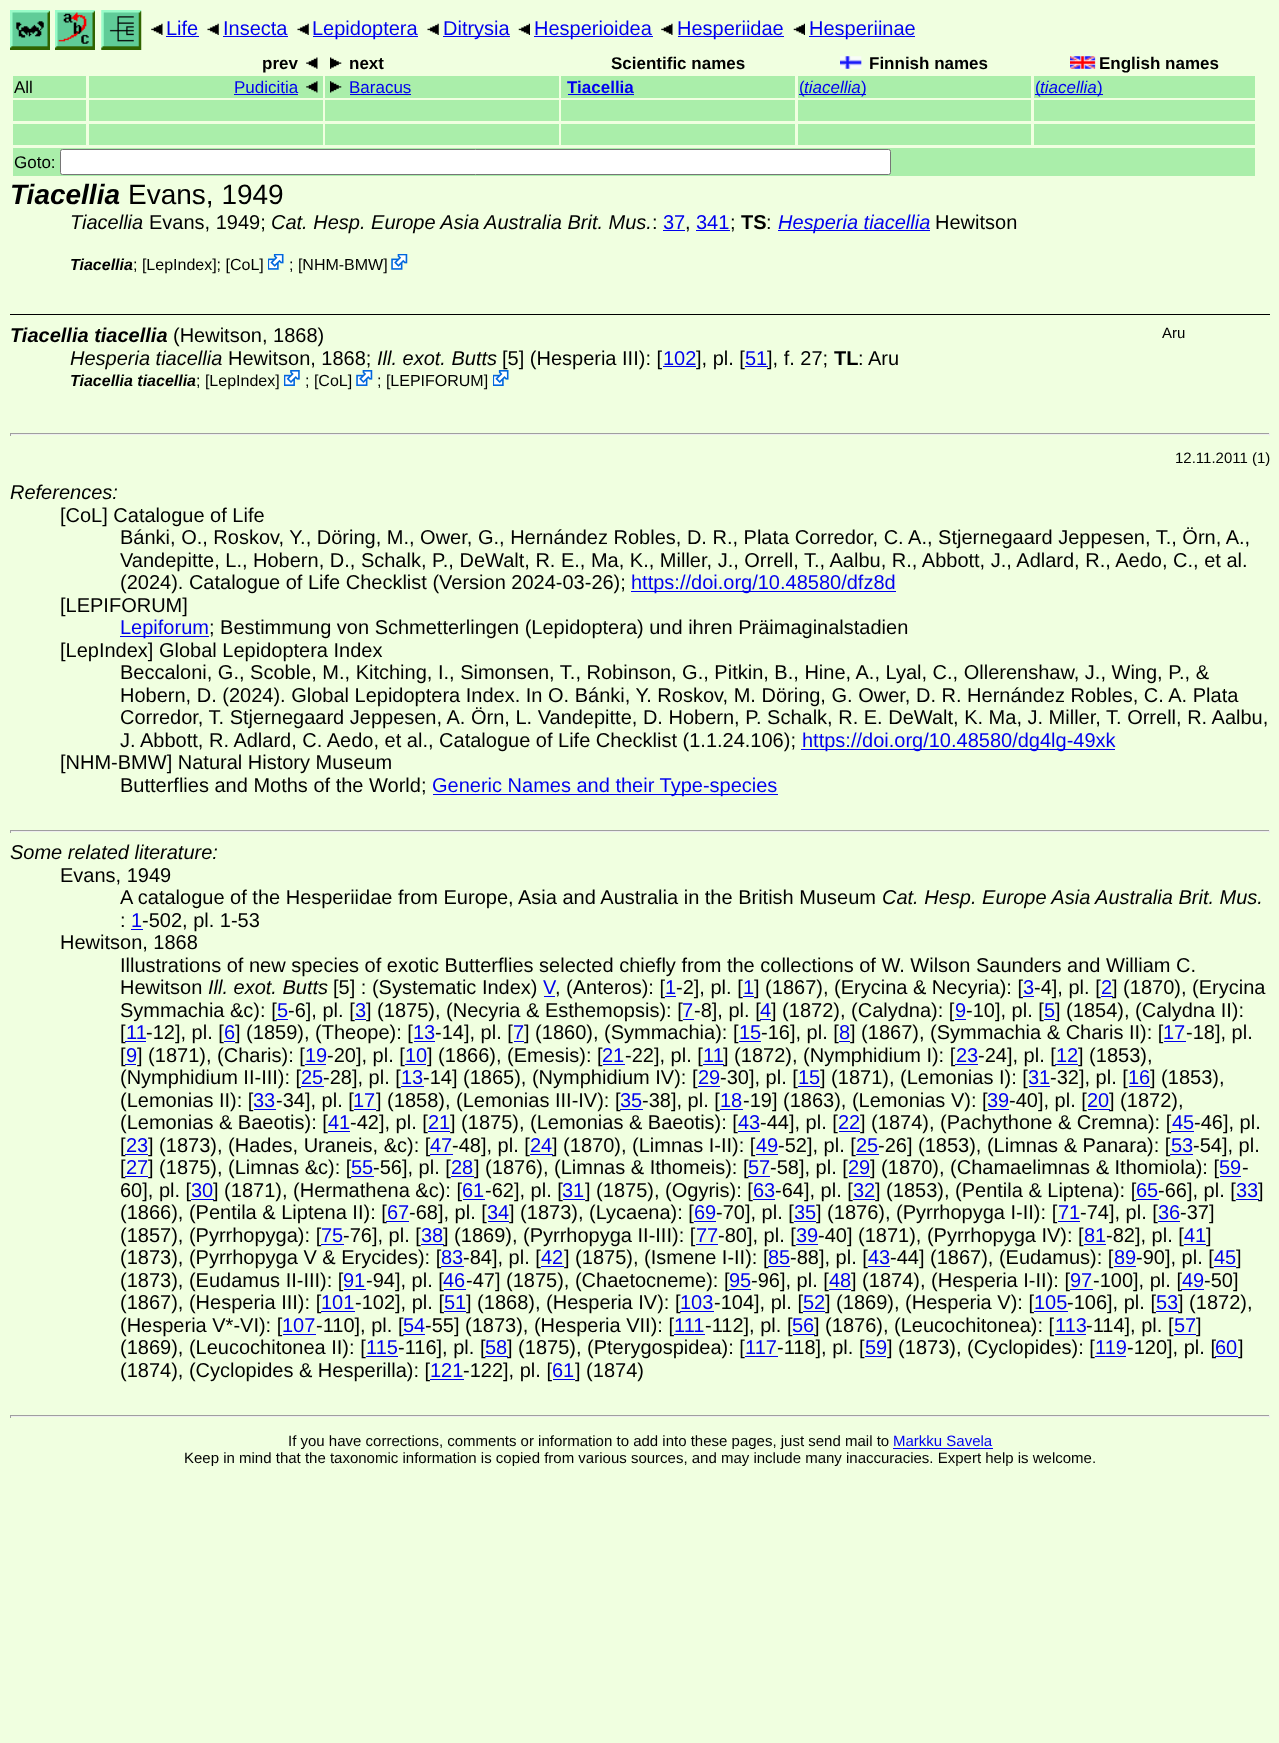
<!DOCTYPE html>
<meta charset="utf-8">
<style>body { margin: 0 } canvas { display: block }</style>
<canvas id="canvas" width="1279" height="1743"></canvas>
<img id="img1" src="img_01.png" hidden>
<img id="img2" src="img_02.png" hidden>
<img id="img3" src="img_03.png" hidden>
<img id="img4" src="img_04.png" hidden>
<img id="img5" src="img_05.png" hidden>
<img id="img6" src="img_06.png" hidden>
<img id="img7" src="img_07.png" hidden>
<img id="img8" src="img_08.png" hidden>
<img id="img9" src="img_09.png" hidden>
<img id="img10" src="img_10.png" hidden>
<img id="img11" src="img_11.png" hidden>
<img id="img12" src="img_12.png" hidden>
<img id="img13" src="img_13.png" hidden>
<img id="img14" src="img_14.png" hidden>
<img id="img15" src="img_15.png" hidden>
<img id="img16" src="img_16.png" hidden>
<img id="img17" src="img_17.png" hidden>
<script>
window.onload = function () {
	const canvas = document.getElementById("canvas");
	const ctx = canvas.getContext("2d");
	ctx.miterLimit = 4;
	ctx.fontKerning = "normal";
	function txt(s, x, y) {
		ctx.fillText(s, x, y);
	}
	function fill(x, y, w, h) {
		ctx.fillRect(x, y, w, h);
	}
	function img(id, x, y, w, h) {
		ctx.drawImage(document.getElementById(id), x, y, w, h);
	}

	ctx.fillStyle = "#F0FFE0";
	fill(0, 0, 1279, 1743);
	img("img1", 10, 10, 40, 40);
	img("img2", 55, 10, 40, 40);
	img("img3", 101, 10, 41, 40);
	img("img4", 151, 23, 12, 12);
	ctx.fillStyle = "#0000EE";
	fill(166, 36, 33, 1);
	img("img5", 207, 23, 12, 12);
	fill(223, 36, 65, 1);
	img("img5", 297, 23, 12, 12);
	fill(313, 36, 105, 1);
	img("img5", 427, 23, 12, 12);
	fill(443, 36, 67, 1);
	img("img6", 518, 23, 12, 12);
	fill(534, 36, 119, 1);
	img("img4", 661, 23, 12, 12);
	fill(678, 36, 106, 1);
	img("img6", 793, 23, 12, 12);
	fill(809, 36, 106, 1);
	img("img7", 306, 57, 12, 12);
	img("img8", 330, 57, 12, 12);
	img("img9", 840, 56, 22, 13);
	img("img10", 1070, 56, 26, 13);
	ctx.fillStyle = "#AAEEAA";
	fill(13, 76, 73, 22);
	fill(89, 76, 234, 22);
	ctx.fillStyle = "#0000EE";
	fill(234, 94, 64, 1);
	img("img11", 306, 81, 12, 12);
	ctx.fillStyle = "#AAEEAA";
	fill(325, 76, 234, 22);
	img("img12", 330, 81, 12, 12);
	ctx.fillStyle = "#0000EE";
	fill(350, 94, 61, 1);
	ctx.fillStyle = "#AAEEAA";
	fill(561, 76, 234, 22);
	ctx.fillStyle = "#0000EE";
	fill(568, 94, 66, 1);
	ctx.fillStyle = "#AAEEAA";
	fill(798, 76, 233, 22);
	ctx.fillStyle = "#0000EE";
	fill(799, 94, 5, 1);
	fill(804, 94, 62, 1);
	ctx.fillStyle = "#AAEEAA";
	fill(1034, 76, 221, 22);
	ctx.fillStyle = "#0000EE";
	fill(1035, 94, 5, 1);
	fill(1040, 94, 63, 1);
	ctx.fillStyle = "#AAEEAA";
	fill(13, 100, 73, 21);
	fill(89, 100, 234, 21);
	fill(325, 100, 234, 21);
	fill(561, 100, 234, 21);
	fill(798, 100, 233, 21);
	fill(1034, 100, 221, 21);
	fill(13, 124, 73, 21);
	fill(89, 124, 234, 21);
	fill(325, 124, 234, 21);
	fill(561, 124, 234, 21);
	fill(798, 124, 233, 21);
	fill(1034, 124, 221, 21);
	fill(13, 148, 1242, 28);
	ctx.fillStyle = "#FFFFFF";
	ctx.beginPath();
	ctx.roundRect(60.5, 149.5, 830, 25, 2);
	ctx.fill();
	ctx.strokeStyle = "#767676";
	ctx.stroke();
	ctx.fillStyle = "#0000EE";
	fill(663, 230, 22, 1);
	fill(696, 230, 34, 1);
	fill(778, 230, 152, 1);
	img("img13", 268, 254, 16, 16);
	img("img14", 391, 254, 17, 16);
	ctx.fillStyle = "#000000";
	fill(10, 314, 1260, 1);
	ctx.fillStyle = "#0000EE";
	fill(663, 366, 33, 1);
	fill(745, 366, 23, 1);
	img("img15", 284, 370, 16, 16);
	img("img16", 356, 370, 17, 16);
	img("img17", 493, 370, 16, 16);
	ctx.fillStyle = "#9F9F9F";
	fill(10, 433, 1260, 1);
	ctx.fillStyle = "#EEEEEE";
	fill(1269, 433, 1, 3);
	fill(10, 434, 1260, 1);
	ctx.fillStyle = "#9F9F9F";
	fill(10, 433, 1, 3);
	ctx.fillStyle = "#0000EE";
	fill(631, 591, 265, 1);
	fill(120, 636, 89, 1);
	fill(801, 749, 314, 1);
	fill(433, 794, 345, 1);
	ctx.fillStyle = "#9F9F9F";
	fill(10, 830, 1260, 1);
	ctx.fillStyle = "#EEEEEE";
	fill(1269, 830, 1, 3);
	fill(10, 831, 1260, 1);
	ctx.fillStyle = "#9F9F9F";
	fill(10, 830, 1, 3);
	ctx.fillStyle = "#0000EE";
	fill(131, 929, 12, 1);
	fill(544, 996, 11, 1);
	fill(665, 996, 11, 1);
	fill(743, 996, 11, 1);
	fill(1023, 996, 11, 1);
	fill(1101, 996, 12, 1);
	fill(355, 1019, 11, 1);
	fill(683, 1019, 11, 1);
	fill(955, 1019, 11, 1);
	fill(1044, 1019, 11, 1);
	fill(224, 1041, 11, 1);
	fill(414, 1041, 21, 1);
	fill(514, 1041, 10, 1);
	fill(739, 1041, 22, 1);
	fill(839, 1041, 11, 1);
	fill(1164, 1041, 22, 1);
	fill(305, 1064, 21, 1);
	fill(405, 1064, 21, 1);
	fill(603, 1064, 22, 1);
	fill(703, 1064, 21, 1);
	fill(301, 1086, 23, 1);
	fill(698, 1086, 22, 1);
	fill(798, 1086, 22, 1);
	fill(1029, 1086, 21, 1);
	fill(1129, 1086, 21, 1);
	fill(254, 1109, 22, 1);
	fill(354, 1109, 22, 1);
	fill(988, 1109, 21, 1);
	fill(1088, 1109, 22, 1);
	fill(328, 1131, 22, 1);
	fill(428, 1131, 22, 1);
	fill(738, 1131, 22, 1);
	fill(839, 1131, 21, 1);
	fill(430, 1154, 23, 1);
	fill(756, 1154, 22, 1);
	fill(856, 1154, 23, 1);
	fill(748, 1176, 22, 1);
	fill(849, 1176, 21, 1);
	fill(1220, 1176, 21, 1);
	fill(191, 1199, 23, 1);
	fill(463, 1199, 22, 1);
	fill(563, 1199, 22, 1);
	fill(753, 1199, 22, 1);
	fill(853, 1199, 22, 1);
	fill(1136, 1199, 23, 1);
	fill(1236, 1199, 23, 1);
	fill(488, 1221, 21, 1);
	fill(694, 1221, 22, 1);
	fill(794, 1221, 22, 1);
	fill(1058, 1221, 22, 1);
	fill(1158, 1221, 22, 1);
	fill(696, 1244, 22, 1);
	fill(796, 1244, 22, 1);
	fill(1084, 1244, 22, 1);
	fill(1184, 1244, 22, 1);
	fill(768, 1266, 22, 1);
	fill(868, 1266, 22, 1);
	fill(1114, 1266, 22, 1);
	fill(1214, 1266, 22, 1);
	fill(344, 1289, 22, 1);
	fill(444, 1289, 22, 1);
	fill(444, 1311, 22, 1);
	fill(803, 1311, 22, 1);
	fill(1034, 1311, 34, 1);
	fill(1156, 1311, 23, 1);
	fill(283, 1334, 33, 1);
	fill(403, 1334, 22, 1);
	fill(793, 1334, 22, 1);
	fill(1055, 1334, 31, 1);
	fill(1174, 1334, 22, 1);
	fill(366, 1356, 32, 1);
	fill(485, 1356, 23, 1);
	fill(865, 1356, 21, 1);
	fill(1095, 1356, 31, 1);
	fill(430, 1379, 34, 1);
	fill(553, 1379, 22, 1);
	ctx.fillStyle = "#9F9F9F";
	fill(10, 1415, 1260, 1);
	ctx.fillStyle = "#EEEEEE";
	fill(1269, 1415, 1, 3);
	fill(10, 1416, 1260, 1);
	ctx.fillStyle = "#9F9F9F";
	fill(10, 1415, 1, 3);
	ctx.fillStyle = "#0000EE";
	fill(893, 1448, 100, 1);
	ctx.font = "20px Liberation Sans";
	txt("Life", 166, 35);
	txt("Insecta", 223, 35);
	txt("Lepidoptera", 312, 35);
	txt("Ditrysia", 443, 35);
	txt("Hesperioidea", 534, 35);
	txt("Hesperiidae", 677, 35);
	txt("Hesperiinae", 809, 35);
	ctx.font = "bold 17px Liberation Sans";
	ctx.fillStyle = "#000000";
	txt("prev", 262, 69);
	txt("next", 349, 69);
	txt("Scientific names", 611, 69);
	txt("Finnish names", 869, 69);
	txt("English names", 1099, 69);
	ctx.font = "17px Liberation Sans";
	txt("All", 14, 93);
	ctx.fillStyle = "#0000EE";
	txt("Pudicitia", 234, 93);
	txt("Baracus", 349, 93);
	ctx.font = "bold 17px Liberation Sans";
	txt("Tiacellia", 567, 93);
	ctx.font = "17px Liberation Sans";
	txt("(", 799, 93);
	ctx.font = "italic 17px Liberation Sans";
	txt("tiacellia", 804, 93);
	ctx.font = "17px Liberation Sans";
	txt(")", 861, 93);
	txt("(", 1035, 93);
	ctx.font = "italic 17px Liberation Sans";
	txt("tiacellia", 1040, 93);
	ctx.font = "17px Liberation Sans";
	txt(")", 1097, 93);
	ctx.fillStyle = "#000000";
	txt("Goto:", 14, 168);
	ctx.font = "italic bold 28px Liberation Sans";
	txt("Tiacellia", 10, 204);
	ctx.font = "28px Liberation Sans";
	txt("Evans, 1949", 128, 204);
	ctx.font = "italic 20px Liberation Sans";
	txt("Tiacellia", 70, 229);
	ctx.font = "20px Liberation Sans";
	txt("Evans, 1949;", 149, 229);
	ctx.font = "italic 20px Liberation Sans";
	txt("Cat. Hesp. Europe Asia Australia Brit. Mus.", 271, 229);
	ctx.font = "20px Liberation Sans";
	txt(":", 652, 229);
	ctx.fillStyle = "#0000EE";
	txt("37", 663, 229);
	ctx.fillStyle = "#000000";
	txt(",", 685, 229);
	ctx.fillStyle = "#0000EE";
	txt("341", 696, 229);
	ctx.fillStyle = "#000000";
	txt(";", 730, 229);
	ctx.font = "bold 20px Liberation Sans";
	txt("TS", 741, 229);
	ctx.font = "20px Liberation Sans";
	txt(":", 766, 229);
	ctx.font = "italic 20px Liberation Sans";
	ctx.fillStyle = "#0000EE";
	txt("Hesperia tiacellia", 778, 229);
	ctx.font = "20px Liberation Sans";
	ctx.fillStyle = "#000000";
	txt("Hewitson", 935, 229);
	ctx.font = "italic bold 16px Liberation Sans";
	txt("Tiacellia", 70, 270);
	ctx.font = "16px Liberation Sans";
	txt("; [LepIndex]; [CoL]", 133, 270);
	txt("; [NHM-BMW]", 289, 270);
	ctx.font = "italic bold 20px Liberation Sans";
	txt("Tiacellia tiacellia", 10, 342);
	ctx.font = "20px Liberation Sans";
	txt("(Hewitson, 1868)", 173, 342);
	ctx.font = "15px Liberation Sans";
	txt("Aru", 1162, 338);
	ctx.font = "italic 20px Liberation Sans";
	txt("Hesperia tiacellia", 70, 365);
	ctx.font = "20px Liberation Sans";
	txt("Hewitson, 1868;", 228, 365);
	ctx.font = "italic 20px Liberation Sans";
	txt("Ill. exot. Butts", 377, 365);
	ctx.font = "20px Liberation Sans";
	txt("[5] (Hesperia III): [", 502, 365);
	ctx.fillStyle = "#0000EE";
	txt("102", 663, 365);
	ctx.fillStyle = "#000000";
	txt("], pl. [", 696, 365);
	ctx.fillStyle = "#0000EE";
	txt("51", 745, 365);
	ctx.fillStyle = "#000000";
	txt("], f. 27;", 767, 365);
	ctx.font = "bold 20px Liberation Sans";
	txt("TL", 834, 365);
	ctx.font = "20px Liberation Sans";
	txt(": Aru", 858, 365);
	ctx.font = "italic bold 16px Liberation Sans";
	txt("Tiacellia tiacellia", 70, 386);
	ctx.font = "16px Liberation Sans";
	txt("; [LepIndex]", 196, 386);
	txt("; [CoL]", 305, 386);
	txt("; [LEPIFORUM]", 377, 386);
	ctx.font = "15px Liberation Sans";
	txt("12.11.2011 (1)", 1175, 463);
	ctx.font = "italic 20px Liberation Sans";
	txt("References:", 10, 499);
	ctx.font = "20px Liberation Sans";
	txt("[CoL] Catalogue of Life", 60, 522);
	txt("Bánki, O., Roskov, Y., Döring, M., Ower, G., Hernández Robles, D. R., Plata Corredor, C. A., Stjernegaard Jeppesen, T., Örn, A.,", 120, 544);
	txt("Vandepitte, L., Hobern, D., Schalk, P., DeWalt, R. E., Ma, K., Miller, J., Orrell, T., Aalbu, R., Abbott, J., Adlard, R., Aedo, C., et al.", 120, 567);
	txt("(2024). Catalogue of Life Checklist (Version 2024-03-26);", 120, 589);
	ctx.fillStyle = "#0000EE";
	txt("https://doi.org/10.48580/dfz8d", 631, 589);
	ctx.fillStyle = "#000000";
	txt("[LEPIFORUM]", 60, 612);
	ctx.fillStyle = "#0000EE";
	txt("Lepiforum", 120, 634);
	ctx.fillStyle = "#000000";
	txt("; Bestimmung von Schmetterlingen (Lepidoptera) und ihren Präimaginalstadien", 209, 634);
	txt("[LepIndex] Global Lepidoptera Index", 60, 657);
	txt("Beccaloni, G., Scoble, M., Kitching, I., Simonsen, T., Robinson, G., Pitkin, B., Hine, A., Lyal, C., Ollerenshaw, J., Wing, P., &", 120, 679);
	txt("Hobern, D. (2024). Global Lepidoptera Index. In O. Bánki, Y. Roskov, M. Döring, G. Ower, D. R. Hernández Robles, C. A. Plata", 120, 702);
	txt("Corredor, T. Stjernegaard Jeppesen, A. Örn, L. Vandepitte, D. Hobern, P. Schalk, R. E. DeWalt, K. Ma, J. Miller, T. Orrell, R. Aalbu,", 120, 724);
	txt("J. Abbott, R. Adlard, C. Aedo, et al., Catalogue of Life Checklist (1.1.24.106);", 120, 747);
	ctx.fillStyle = "#0000EE";
	txt("https://doi.org/10.48580/dg4lg-49xk", 802, 747);
	ctx.fillStyle = "#000000";
	txt("[NHM-BMW] Natural History Museum", 60, 769);
	txt("Butterflies and Moths of the World;", 120, 792);
	ctx.fillStyle = "#0000EE";
	txt("Generic Names and their Type-species", 432, 792);
	ctx.font = "italic 20px Liberation Sans";
	ctx.fillStyle = "#000000";
	txt("Some related literature:", 10, 859);
	ctx.font = "20px Liberation Sans";
	txt("Evans, 1949", 60, 882);
	txt("A catalogue of the Hesperiidae from Europe, Asia and Australia in the British Museum", 120, 904);
	ctx.font = "italic 20px Liberation Sans";
	txt("Cat. Hesp. Europe Asia Australia Brit. Mus.", 882, 904);
	ctx.font = "20px Liberation Sans";
	txt(":", 120, 927);
	ctx.fillStyle = "#0000EE";
	txt("1", 131, 927);
	ctx.fillStyle = "#000000";
	txt("-502, pl. 1-53", 142, 927);
	txt("Hewitson, 1868", 60, 949);
	txt("Illustrations of new species of exotic Butterflies selected chiefly from the collections of W. Wilson Saunders and William C.", 120, 972);
	txt("Hewitson", 120, 994);
	ctx.font = "italic 20px Liberation Sans";
	txt("Ill. exot. Butts", 208, 994);
	ctx.font = "20px Liberation Sans";
	txt("[5] : (Systematic Index)", 333, 994);
	ctx.fillStyle = "#0000EE";
	txt("V", 543, 994);
	ctx.fillStyle = "#000000";
	txt(", (Anteros): [", 555, 994);
	ctx.fillStyle = "#0000EE";
	txt("1", 665, 994);
	ctx.fillStyle = "#000000";
	txt("-2], pl. [", 676, 994);
	ctx.fillStyle = "#0000EE";
	txt("1", 743, 994);
	ctx.fillStyle = "#000000";
	txt("] (1867), (Erycina & Necyria): [", 754, 994);
	ctx.fillStyle = "#0000EE";
	txt("3", 1023, 994);
	ctx.fillStyle = "#000000";
	txt("-4], pl. [", 1034, 994);
	ctx.fillStyle = "#0000EE";
	txt("2", 1101, 994);
	ctx.fillStyle = "#000000";
	txt("] (1870), (Erycina", 1112, 994);
	txt("Symmachia &c): [", 120, 1017);
	ctx.fillStyle = "#0000EE";
	txt("5", 277, 1017);
	fill(276, 1019, 12, 1);
	ctx.fillStyle = "#000000";
	txt("-6], pl. [", 288, 1017);
	ctx.fillStyle = "#0000EE";
	txt("3", 355, 1017);
	ctx.fillStyle = "#000000";
	txt("] (1875), (Necyria & Esthemopsis): [", 366, 1017);
	ctx.fillStyle = "#0000EE";
	txt("7", 682, 1017);
	ctx.fillStyle = "#000000";
	txt("-8], pl. [", 694, 1017);
	ctx.fillStyle = "#0000EE";
	txt("4", 760, 1017);
	fill(760, 1019, 11, 1);
	ctx.fillStyle = "#000000";
	txt("] (1872), (Calydna): [", 771, 1017);
	ctx.fillStyle = "#0000EE";
	txt("9", 955, 1017);
	ctx.fillStyle = "#000000";
	txt("-10], pl. [", 966, 1017);
	ctx.fillStyle = "#0000EE";
	txt("5", 1044, 1017);
	ctx.fillStyle = "#000000";
	txt("] (1854), (Calydna II):", 1055, 1017);
	txt("[", 120, 1039);
	ctx.fillStyle = "#0000EE";
	txt("11", 126, 1039);
	fill(125, 1041, 21, 1);
	ctx.fillStyle = "#000000";
	txt("-12], pl. [", 146, 1039);
	ctx.fillStyle = "#0000EE";
	txt("6", 224, 1039);
	ctx.fillStyle = "#000000";
	txt("] (1859), (Theope): [", 235, 1039);
	ctx.fillStyle = "#0000EE";
	txt("13", 413, 1039);
	ctx.fillStyle = "#000000";
	txt("-14], pl. [", 435, 1039);
	ctx.fillStyle = "#0000EE";
	txt("7", 513, 1039);
	ctx.fillStyle = "#000000";
	txt("] (1860), (Symmachia): [", 524, 1039);
	ctx.fillStyle = "#0000EE";
	txt("15", 739, 1039);
	ctx.fillStyle = "#000000";
	txt("-16], pl. [", 761, 1039);
	ctx.fillStyle = "#0000EE";
	txt("8", 839, 1039);
	ctx.fillStyle = "#000000";
	txt("] (1867), (Symmachia & Charis II): [", 850, 1039);
	ctx.fillStyle = "#0000EE";
	txt("17", 1163, 1039);
	ctx.fillStyle = "#000000";
	txt("-18], pl.", 1186, 1039);
	txt("[", 120, 1062);
	ctx.fillStyle = "#0000EE";
	txt("9", 126, 1062);
	fill(125, 1064, 11, 1);
	ctx.fillStyle = "#000000";
	txt("] (1871), (Charis): [", 137, 1062);
	ctx.fillStyle = "#0000EE";
	txt("19", 305, 1062);
	ctx.fillStyle = "#000000";
	txt("-20], pl. [", 327, 1062);
	ctx.fillStyle = "#0000EE";
	txt("10", 405, 1062);
	ctx.fillStyle = "#000000";
	txt("] (1866), (Emesis): [", 427, 1062);
	ctx.fillStyle = "#0000EE";
	txt("21", 602, 1062);
	ctx.fillStyle = "#000000";
	txt("-22], pl. [", 625, 1062);
	ctx.fillStyle = "#0000EE";
	txt("11", 703, 1062);
	ctx.fillStyle = "#000000";
	txt("] (1872), (Nymphidium I): [", 723, 1062);
	ctx.fillStyle = "#0000EE";
	txt("23", 956, 1062);
	fill(955, 1064, 23, 1);
	ctx.fillStyle = "#000000";
	txt("-24], pl. [", 978, 1062);
	ctx.fillStyle = "#0000EE";
	txt("12", 1056, 1062);
	fill(1055, 1064, 23, 1);
	ctx.fillStyle = "#000000";
	txt("] (1853),", 1078, 1062);
	txt("(Nymphidium II-III): [", 120, 1084);
	ctx.fillStyle = "#0000EE";
	txt("25", 301, 1084);
	ctx.fillStyle = "#000000";
	txt("-28], pl. [", 323, 1084);
	ctx.fillStyle = "#0000EE";
	txt("13", 401, 1084);
	fill(401, 1086, 23, 1);
	ctx.fillStyle = "#000000";
	txt("-14] (1865), (Nymphidium IV): [", 423, 1084);
	ctx.fillStyle = "#0000EE";
	txt("29", 698, 1084);
	ctx.fillStyle = "#000000";
	txt("-30], pl. [", 720, 1084);
	ctx.fillStyle = "#0000EE";
	txt("15", 798, 1084);
	ctx.fillStyle = "#000000";
	txt("] (1871), (Lemonias I): [", 820, 1084);
	ctx.fillStyle = "#0000EE";
	txt("31", 1028, 1084);
	ctx.fillStyle = "#000000";
	txt("-32], pl. [", 1050, 1084);
	ctx.fillStyle = "#0000EE";
	txt("16", 1128, 1084);
	ctx.fillStyle = "#000000";
	txt("] (1853),", 1150, 1084);
	txt("(Lemonias II): [", 120, 1107);
	ctx.fillStyle = "#0000EE";
	txt("33", 253, 1107);
	ctx.fillStyle = "#000000";
	txt("-34], pl. [", 276, 1107);
	ctx.fillStyle = "#0000EE";
	txt("17", 353, 1107);
	ctx.fillStyle = "#000000";
	txt("] (1858), (Lemonias III-IV): [", 376, 1107);
	ctx.fillStyle = "#0000EE";
	txt("35", 620, 1107);
	fill(620, 1109, 23, 1);
	ctx.fillStyle = "#000000";
	txt("-38], pl. [", 642, 1107);
	ctx.fillStyle = "#0000EE";
	txt("18", 720, 1107);
	fill(720, 1109, 23, 1);
	ctx.fillStyle = "#000000";
	txt("-19] (1863), (Lemonias V): [", 743, 1107);
	ctx.fillStyle = "#0000EE";
	txt("39", 987, 1107);
	ctx.fillStyle = "#000000";
	txt("-40], pl. [", 1009, 1107);
	ctx.fillStyle = "#0000EE";
	txt("20", 1087, 1107);
	ctx.fillStyle = "#000000";
	txt("] (1872),", 1109, 1107);
	txt("(Lemonias & Baeotis): [", 120, 1129);
	ctx.fillStyle = "#0000EE";
	txt("41", 328, 1129);
	ctx.fillStyle = "#000000";
	txt("-42], pl. [", 350, 1129);
	ctx.fillStyle = "#0000EE";
	txt("21", 428, 1129);
	ctx.fillStyle = "#000000";
	txt("] (1875), (Lemonias & Baeotis): [", 450, 1129);
	ctx.fillStyle = "#0000EE";
	txt("43", 738, 1129);
	ctx.fillStyle = "#000000";
	txt("-44], pl. [", 760, 1129);
	ctx.fillStyle = "#0000EE";
	txt("22", 838, 1129);
	ctx.fillStyle = "#000000";
	txt("] (1874), (Pachythone & Cremna): [", 860, 1129);
	ctx.fillStyle = "#0000EE";
	txt("45", 1172, 1129);
	fill(1171, 1131, 23, 1);
	ctx.fillStyle = "#000000";
	txt("-46], pl.", 1194, 1129);
	txt("[", 120, 1152);
	ctx.fillStyle = "#0000EE";
	txt("23", 126, 1152);
	fill(125, 1154, 23, 1);
	ctx.fillStyle = "#000000";
	txt("] (1873), (Hades, Uraneis, &c): [", 148, 1152);
	ctx.fillStyle = "#0000EE";
	txt("47", 430, 1152);
	ctx.fillStyle = "#000000";
	txt("-48], pl. [", 452, 1152);
	ctx.fillStyle = "#0000EE";
	txt("24", 530, 1152);
	fill(530, 1154, 23, 1);
	ctx.fillStyle = "#000000";
	txt("] (1870), (Limnas I-II): [", 552, 1152);
	ctx.fillStyle = "#0000EE";
	txt("49", 756, 1152);
	ctx.fillStyle = "#000000";
	txt("-52], pl. [", 778, 1152);
	ctx.fillStyle = "#0000EE";
	txt("25", 856, 1152);
	ctx.fillStyle = "#000000";
	txt("-26] (1853), (Limnas & Panara): [", 878, 1152);
	ctx.fillStyle = "#0000EE";
	txt("53", 1171, 1152);
	fill(1170, 1154, 23, 1);
	ctx.fillStyle = "#000000";
	txt("-54], pl.", 1193, 1152);
	txt("[", 120, 1174);
	ctx.fillStyle = "#0000EE";
	txt("27", 126, 1174);
	fill(125, 1176, 23, 1);
	ctx.fillStyle = "#000000";
	txt("] (1875), (Limnas &c): [", 148, 1174);
	ctx.fillStyle = "#0000EE";
	txt("55", 351, 1174);
	fill(351, 1176, 23, 1);
	ctx.fillStyle = "#000000";
	txt("-56], pl. [", 373, 1174);
	ctx.fillStyle = "#0000EE";
	txt("28", 451, 1174);
	fill(451, 1176, 23, 1);
	ctx.fillStyle = "#000000";
	txt("] (1876), (Limnas & Ithomeis): [", 474, 1174);
	ctx.fillStyle = "#0000EE";
	txt("57", 748, 1174);
	ctx.fillStyle = "#000000";
	txt("-58], pl. [", 770, 1174);
	ctx.fillStyle = "#0000EE";
	txt("29", 848, 1174);
	ctx.fillStyle = "#000000";
	txt("] (1870), (Chamaelimnas & Ithomiola): [", 870, 1174);
	ctx.fillStyle = "#0000EE";
	txt("59", 1219, 1174);
	ctx.fillStyle = "#000000";
	txt("-", 1242, 1174);
	txt("60], pl. [", 120, 1197);
	ctx.fillStyle = "#0000EE";
	txt("30", 191, 1197);
	ctx.fillStyle = "#000000";
	txt("] (1871), (Hermathena &c): [", 213, 1197);
	ctx.fillStyle = "#0000EE";
	txt("61", 462, 1197);
	ctx.fillStyle = "#000000";
	txt("-62], pl. [", 485, 1197);
	ctx.fillStyle = "#0000EE";
	txt("31", 562, 1197);
	ctx.fillStyle = "#000000";
	txt("] (1875), (Ogyris): [", 585, 1197);
	ctx.fillStyle = "#0000EE";
	txt("63", 753, 1197);
	ctx.fillStyle = "#000000";
	txt("-64], pl. [", 775, 1197);
	ctx.fillStyle = "#0000EE";
	txt("32", 853, 1197);
	ctx.fillStyle = "#000000";
	txt("] (1853), (Pentila & Liptena): [", 875, 1197);
	ctx.fillStyle = "#0000EE";
	txt("65", 1136, 1197);
	ctx.fillStyle = "#000000";
	txt("-66], pl. [", 1158, 1197);
	ctx.fillStyle = "#0000EE";
	txt("33", 1236, 1197);
	ctx.fillStyle = "#000000";
	txt("]", 1258, 1197);
	txt("(1866), (Pentila & Liptena II): [", 120, 1219);
	ctx.fillStyle = "#0000EE";
	txt("67", 387, 1219);
	fill(386, 1221, 23, 1);
	ctx.fillStyle = "#000000";
	txt("-68], pl. [", 409, 1219);
	ctx.fillStyle = "#0000EE";
	txt("34", 487, 1219);
	ctx.fillStyle = "#000000";
	txt("] (1873), (Lycaena): [", 509, 1219);
	ctx.fillStyle = "#0000EE";
	txt("69", 694, 1219);
	ctx.fillStyle = "#000000";
	txt("-70], pl. [", 716, 1219);
	ctx.fillStyle = "#0000EE";
	txt("35", 794, 1219);
	ctx.fillStyle = "#000000";
	txt("] (1876), (Pyrrhopyga I-II): [", 816, 1219);
	ctx.fillStyle = "#0000EE";
	txt("71", 1058, 1219);
	ctx.fillStyle = "#000000";
	txt("-74], pl. [", 1080, 1219);
	ctx.fillStyle = "#0000EE";
	txt("36", 1158, 1219);
	ctx.fillStyle = "#000000";
	txt("-37]", 1180, 1219);
	txt("(1857), (Pyrrhopyga): [", 120, 1242);
	ctx.fillStyle = "#0000EE";
	txt("75", 321, 1242);
	fill(321, 1244, 23, 1);
	ctx.fillStyle = "#000000";
	txt("-76], pl. [", 343, 1242);
	ctx.fillStyle = "#0000EE";
	txt("38", 421, 1242);
	fill(421, 1244, 23, 1);
	ctx.fillStyle = "#000000";
	txt("] (1869), (Pyrrhopyga II-III): [", 443, 1242);
	ctx.fillStyle = "#0000EE";
	txt("77", 696, 1242);
	ctx.fillStyle = "#000000";
	txt("-80], pl. [", 718, 1242);
	ctx.fillStyle = "#0000EE";
	txt("39", 796, 1242);
	ctx.fillStyle = "#000000";
	txt("-40] (1871), (Pyrrhopyga IV): [", 818, 1242);
	ctx.fillStyle = "#0000EE";
	txt("81", 1084, 1242);
	ctx.fillStyle = "#000000";
	txt("-82], pl. [", 1106, 1242);
	ctx.fillStyle = "#0000EE";
	txt("41", 1184, 1242);
	ctx.fillStyle = "#000000";
	txt("]", 1206, 1242);
	txt("(1873), (Pyrrhopyga V & Erycides): [", 120, 1264);
	ctx.fillStyle = "#0000EE";
	txt("83", 441, 1264);
	fill(441, 1266, 23, 1);
	ctx.fillStyle = "#000000";
	txt("-84], pl. [", 463, 1264);
	ctx.fillStyle = "#0000EE";
	txt("42", 541, 1264);
	fill(541, 1266, 23, 1);
	ctx.fillStyle = "#000000";
	txt("] (1875), (Ismene I-II): [", 564, 1264);
	ctx.fillStyle = "#0000EE";
	txt("85", 768, 1264);
	ctx.fillStyle = "#000000";
	txt("-88], pl. [", 790, 1264);
	ctx.fillStyle = "#0000EE";
	txt("43", 868, 1264);
	ctx.fillStyle = "#000000";
	txt("-44] (1867), (Eudamus): [", 890, 1264);
	ctx.fillStyle = "#0000EE";
	txt("89", 1114, 1264);
	ctx.fillStyle = "#000000";
	txt("-90], pl. [", 1136, 1264);
	ctx.fillStyle = "#0000EE";
	txt("45", 1214, 1264);
	ctx.fillStyle = "#000000";
	txt("]", 1236, 1264);
	txt("(1873), (Eudamus II-III): [", 120, 1287);
	ctx.fillStyle = "#0000EE";
	txt("91", 343, 1287);
	ctx.fillStyle = "#000000";
	txt("-94], pl. [", 366, 1287);
	ctx.fillStyle = "#0000EE";
	txt("46", 443, 1287);
	ctx.fillStyle = "#000000";
	txt("-47] (1875), (Chaetocneme): [", 466, 1287);
	ctx.fillStyle = "#0000EE";
	txt("95", 729, 1287);
	fill(729, 1289, 22, 1);
	ctx.fillStyle = "#000000";
	txt("-96], pl. [", 751, 1287);
	ctx.fillStyle = "#0000EE";
	txt("48", 829, 1287);
	fill(829, 1289, 22, 1);
	ctx.fillStyle = "#000000";
	txt("] (1874), (Hesperia I-II): [", 851, 1287);
	ctx.fillStyle = "#0000EE";
	txt("97", 1070, 1287);
	fill(1070, 1289, 23, 1);
	ctx.fillStyle = "#000000";
	txt("-100], pl. [", 1093, 1287);
	ctx.fillStyle = "#0000EE";
	txt("49", 1182, 1287);
	fill(1181, 1289, 23, 1);
	ctx.fillStyle = "#000000";
	txt("-50]", 1204, 1287);
	txt("(1867), (Hesperia III): [", 120, 1309);
	ctx.fillStyle = "#0000EE";
	txt("101", 321, 1309);
	fill(321, 1311, 34, 1);
	ctx.fillStyle = "#000000";
	txt("-102], pl. [", 355, 1309);
	ctx.fillStyle = "#0000EE";
	txt("51", 444, 1309);
	ctx.fillStyle = "#000000";
	txt("] (1868), (Hesperia IV): [", 466, 1309);
	ctx.fillStyle = "#0000EE";
	txt("103", 680, 1309);
	fill(680, 1311, 34, 1);
	ctx.fillStyle = "#000000";
	txt("-104], pl. [", 714, 1309);
	ctx.fillStyle = "#0000EE";
	txt("52", 803, 1309);
	ctx.fillStyle = "#000000";
	txt("] (1869), (Hesperia V): [", 825, 1309);
	ctx.fillStyle = "#0000EE";
	txt("105", 1034, 1309);
	ctx.fillStyle = "#000000";
	txt("-106], pl. [", 1067, 1309);
	ctx.fillStyle = "#0000EE";
	txt("53", 1156, 1309);
	ctx.fillStyle = "#000000";
	txt("] (1872),", 1178, 1309);
	txt("(Hesperia V*-VI): [", 120, 1332);
	ctx.fillStyle = "#0000EE";
	txt("107", 282, 1332);
	ctx.fillStyle = "#000000";
	txt("-110], pl. [", 316, 1332);
	ctx.fillStyle = "#0000EE";
	txt("54", 403, 1332);
	ctx.fillStyle = "#000000";
	txt("-55] (1873), (Hesperia VII): [", 425, 1332);
	ctx.fillStyle = "#0000EE";
	txt("111", 674, 1332);
	fill(674, 1334, 31, 1);
	ctx.fillStyle = "#000000";
	txt("-112], pl. [", 705, 1332);
	ctx.fillStyle = "#0000EE";
	txt("56", 792, 1332);
	ctx.fillStyle = "#000000";
	txt("] (1876), (Leucochitonea): [", 814, 1332);
	ctx.fillStyle = "#0000EE";
	txt("113", 1055, 1332);
	ctx.fillStyle = "#000000";
	txt("-114], pl. [", 1086, 1332);
	ctx.fillStyle = "#0000EE";
	txt("57", 1174, 1332);
	ctx.fillStyle = "#000000";
	txt("]", 1196, 1332);
	txt("(1869), (Leucochitonea II): [", 120, 1354);
	ctx.fillStyle = "#0000EE";
	txt("115", 366, 1354);
	ctx.fillStyle = "#000000";
	txt("-116], pl. [", 398, 1354);
	ctx.fillStyle = "#0000EE";
	txt("58", 485, 1354);
	ctx.fillStyle = "#000000";
	txt("] (1875), (Pterygospidea): [", 507, 1354);
	ctx.fillStyle = "#0000EE";
	txt("117", 745, 1354);
	fill(745, 1356, 33, 1);
	ctx.fillStyle = "#000000";
	txt("-118], pl. [", 777, 1354);
	ctx.fillStyle = "#0000EE";
	txt("59", 865, 1354);
	ctx.fillStyle = "#000000";
	txt("] (1873), (Cyclopides): [", 887, 1354);
	ctx.fillStyle = "#0000EE";
	txt("119", 1095, 1354);
	ctx.fillStyle = "#000000";
	txt("-120], pl. [", 1127, 1354);
	ctx.fillStyle = "#0000EE";
	txt("60", 1215, 1354);
	fill(1215, 1356, 23, 1);
	ctx.fillStyle = "#000000";
	txt("]", 1238, 1354);
	txt("(1874), (Cyclopides & Hesperilla): [", 120, 1377);
	ctx.fillStyle = "#0000EE";
	txt("121", 430, 1377);
	ctx.fillStyle = "#000000";
	txt("-122], pl. [", 463, 1377);
	ctx.fillStyle = "#0000EE";
	txt("61", 552, 1377);
	ctx.fillStyle = "#000000";
	txt("] (1874)", 575, 1377);
	ctx.font = "15px Liberation Sans";
	txt("If you have corrections, comments or information to add into these pages, just send mail to", 288, 1446);
	ctx.fillStyle = "#0000EE";
	txt("Markku Savela", 893, 1446);
	ctx.fillStyle = "#000000";
	txt("Keep in mind that the taxonomic information is copied from various sources, and may include many inaccuracies. Expert help is welcome.", 184, 1463);
};
</script>
